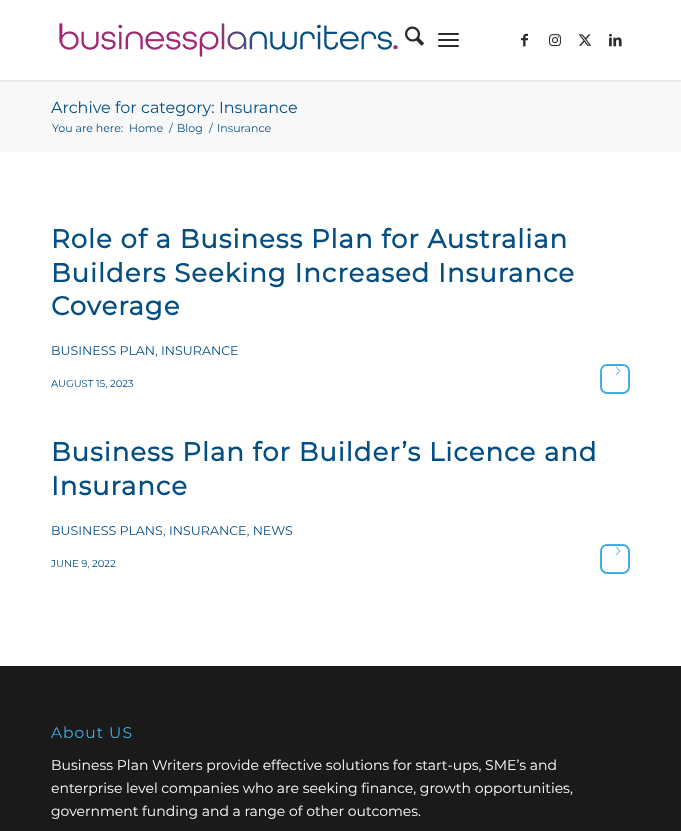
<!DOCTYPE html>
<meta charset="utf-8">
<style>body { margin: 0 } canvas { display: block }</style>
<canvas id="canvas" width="681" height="831"></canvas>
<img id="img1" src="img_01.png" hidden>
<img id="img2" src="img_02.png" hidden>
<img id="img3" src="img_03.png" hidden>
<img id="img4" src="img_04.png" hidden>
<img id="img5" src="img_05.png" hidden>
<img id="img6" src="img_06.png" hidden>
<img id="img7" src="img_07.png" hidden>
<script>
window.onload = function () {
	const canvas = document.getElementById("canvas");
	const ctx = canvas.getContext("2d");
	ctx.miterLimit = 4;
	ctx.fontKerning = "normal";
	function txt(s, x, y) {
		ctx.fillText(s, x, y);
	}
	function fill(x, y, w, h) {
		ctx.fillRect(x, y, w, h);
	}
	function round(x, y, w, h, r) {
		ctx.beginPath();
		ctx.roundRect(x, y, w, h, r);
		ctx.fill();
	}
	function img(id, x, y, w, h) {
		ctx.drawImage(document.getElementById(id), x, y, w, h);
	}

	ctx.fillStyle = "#FFFFFF";
	fill(0, 0, 681, 831);
	ctx.fillStyle = "#F8F8F8";
	fill(0, 80, 681, 72);
	ctx.save();
	ctx.beginPath();
	ctx.rect(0, 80, 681, 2);
	ctx.clip();
	ctx.fillStyle = "rgba(0, 0, 0, 0.1)";
	ctx.filter = "blur(1px)";
	ctx.beginPath();
	ctx.rect(-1, -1, 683, 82);
	ctx.fill();
	ctx.filter = "none";
	ctx.restore();
	img("img1", 59, 23, 339, 34);
	img("img2", 405, 26, 19, 20);
	ctx.fillStyle = "#2A2A2A";
	round(438, 39, 21, 2, 1);
	round(438, 33, 21, 2, 1);
	round(438, 45, 21, 2, 1);
	img("img3", 521, 33, 7, 14);
	img("img4", 549, 34, 12, 13);
	img("img5", 578, 34, 14, 12);
	img("img6", 609, 33, 13, 14);
	ctx.beginPath();
	ctx.roundRect(601, 365, 28, 28, 6);
	ctx.strokeStyle = "#44ACE0";
	ctx.lineWidth = 2;
	ctx.stroke();
	img("img7", 615, 366, 6, 10);
	ctx.beginPath();
	ctx.roundRect(601, 545, 28, 28, 6);
	ctx.stroke();
	img("img7", 615, 546, 6, 10);
	ctx.fillStyle = "#1A1A1A";
	fill(0, 666, 681, 165);
	ctx.font = "100 16px Montserrat";
	ctx.fillStyle = "#044E82";
	txt("Archive for category: Insurance", 51, 113);
	ctx.font = "100 11px Montserrat";
	txt("You are here:", 52, 132);
	txt("Home", 129, 132);
	txt("/", 169, 132);
	txt("Blog", 177, 132);
	txt("/", 209, 132);
	txt("Insurance", 217, 132);
	ctx.letterSpacing = "1px";
	ctx.font = "bold 26px Montserrat";
	txt("Role of a Business Plan for Australian", 51, 248);
	txt("Builders Seeking Increased Insurance", 51, 282);
	txt("Coverage", 51, 315);
	ctx.letterSpacing = "0px";
	ctx.font = "100 12.6px Montserrat";
	txt("BUSINESS PLAN, INSURANCE", 51, 355);
	ctx.font = "100 10px Montserrat";
	txt("AUGUST 15, 2023", 51, 387);
	ctx.letterSpacing = "1px";
	ctx.font = "bold 26px Montserrat";
	txt("Business Plan for Builder’s Licence and", 51, 461);
	txt("Insurance", 51, 495);
	ctx.letterSpacing = "0px";
	ctx.font = "100 12.6px Montserrat";
	txt("BUSINESS PLANS, INSURANCE, NEWS", 51, 535);
	ctx.font = "100 10px Montserrat";
	txt("JUNE 9, 2022", 51, 567);
	ctx.letterSpacing = "1px";
	ctx.font = "100 15.5px Montserrat";
	ctx.fillStyle = "#44ACE0";
	txt("About US", 51, 738);
	ctx.letterSpacing = "0px";
	ctx.font = "100 14px Montserrat";
	ctx.fillStyle = "#FFFFFF";
	txt("Business Plan Writers provide effective solutions for start-ups, SME’s and", 51, 770);
	txt("enterprise level companies who are seeking finance, growth opportunities,", 51, 793);
	txt("government funding and a range of other outcomes.", 51, 816);
};
</script>
